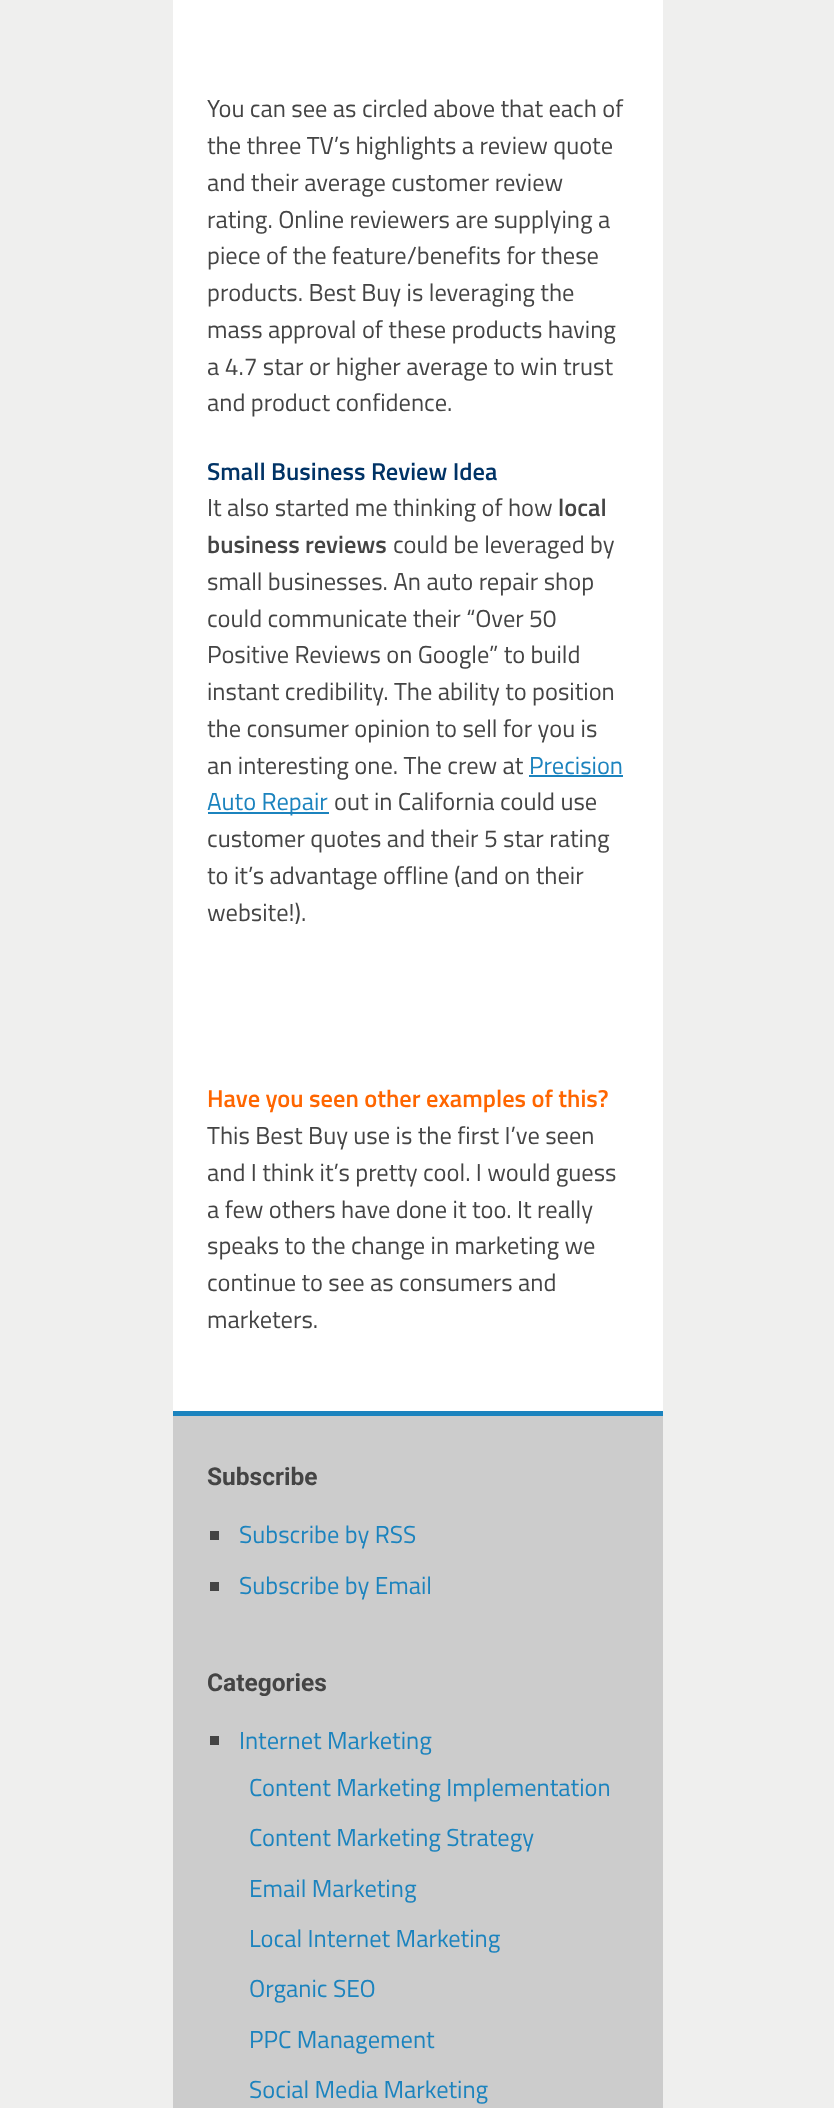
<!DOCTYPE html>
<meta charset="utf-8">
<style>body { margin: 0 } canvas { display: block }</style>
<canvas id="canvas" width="834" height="2108"></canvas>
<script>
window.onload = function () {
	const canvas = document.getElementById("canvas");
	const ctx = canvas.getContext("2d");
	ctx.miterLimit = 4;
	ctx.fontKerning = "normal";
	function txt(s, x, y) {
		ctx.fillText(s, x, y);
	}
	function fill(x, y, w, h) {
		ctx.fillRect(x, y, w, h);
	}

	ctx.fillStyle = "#EFEFEE";
	fill(0, 0, 834, 2108);
	ctx.fillStyle = "#CCCCCC";
	fill(173, 1416, 490, 692);
	ctx.fillStyle = "#FFFFFF";
	fill(173, 0, 490, 1411);
	ctx.fillStyle = "#1B83BE";
	fill(173, 1411, 490, 5);
	fill(529, 775, 94, 2);
	fill(208, 812, 121, 2);
	ctx.fillStyle = "#444444";
	fill(210, 1531, 9, 9);
	fill(210, 1582, 9, 9);
	fill(210, 1736, 9, 9);
	ctx.font = "24.5px Titillium Web";
	txt("You can see as circled above that each of", 207, 117);
	txt("the three TV’s highlights a review quote", 207, 154);
	txt("and their average customer review", 207, 191);
	txt("rating. Online reviewers are supplying a", 207, 228);
	txt("piece of the feature/benefits for these", 207, 264);
	txt("products. Best Buy is leveraging the", 207, 301);
	txt("mass approval of these products having", 207, 338);
	txt("a 4.7 star or higher average to win trust", 207, 375);
	txt("and product confidence.", 207, 411);
	ctx.font = "600 24.5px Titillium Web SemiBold";
	ctx.fillStyle = "#003366";
	txt("Small Business Review Idea", 207, 480);
	ctx.font = "24.5px Titillium Web";
	ctx.fillStyle = "#444444";
	txt("It also started me thinking of how", 207, 516);
	ctx.font = "600 24.5px Titillium Web SemiBold";
	txt("local", 558, 516);
	txt("business reviews", 207, 553);
	ctx.font = "24.5px Titillium Web";
	txt("could be leveraged by", 393, 553);
	txt("small businesses. An auto repair shop", 207, 590);
	txt("could communicate their “Over 50", 207, 627);
	txt("Positive Reviews on Google” to build", 207, 663);
	txt("instant credibility. The ability to position", 207, 700);
	txt("the consumer opinion to sell for you is", 207, 737);
	txt("an interesting one. The crew at", 207, 774);
	ctx.fillStyle = "#1B83BE";
	txt("Precision", 529, 774);
	txt("Auto Repair", 207, 810);
	ctx.fillStyle = "#444444";
	txt("out in California could use", 334, 810);
	txt("customer quotes and their 5 star rating", 207, 847);
	txt("to it’s advantage offline (and on their", 207, 884);
	txt("website!).", 207, 921);
	ctx.font = "600 24.5px Titillium Web SemiBold";
	ctx.fillStyle = "#FF6600";
	txt("Have you seen other examples of this?", 207, 1107);
	ctx.font = "24.5px Titillium Web";
	ctx.fillStyle = "#444444";
	txt("This Best Buy use is the first I’ve seen", 207, 1144);
	txt("and I think it’s pretty cool. I would guess", 207, 1181);
	txt("a few others have done it too. It really", 207, 1218);
	txt("speaks to the change in marketing we", 207, 1254);
	txt("continue to see as consumers and", 207, 1291);
	txt("marketers.", 207, 1328);
	ctx.font = "bold 24.5px Roboto";
	txt("Subscribe", 207, 1485);
	ctx.font = "24.5px Titillium Web";
	ctx.fillStyle = "#1B83BE";
	txt("Subscribe by RSS", 239, 1543);
	txt("Subscribe by Email", 239, 1594);
	ctx.font = "bold 24.5px Roboto";
	ctx.fillStyle = "#444444";
	txt("Categories", 207, 1691);
	ctx.font = "24.5px Titillium Web";
	ctx.fillStyle = "#1B83BE";
	txt("Internet Marketing", 239, 1749);
	txt("Content Marketing Implementation", 249, 1796);
	txt("Content Marketing Strategy", 249, 1846);
	txt("Email Marketing", 249, 1897);
	txt("Local Internet Marketing", 249, 1947);
	txt("Organic SEO", 249, 1997);
	txt("PPC Management", 249, 2048);
	txt("Social Media Marketing", 249, 2098);
};
</script>
